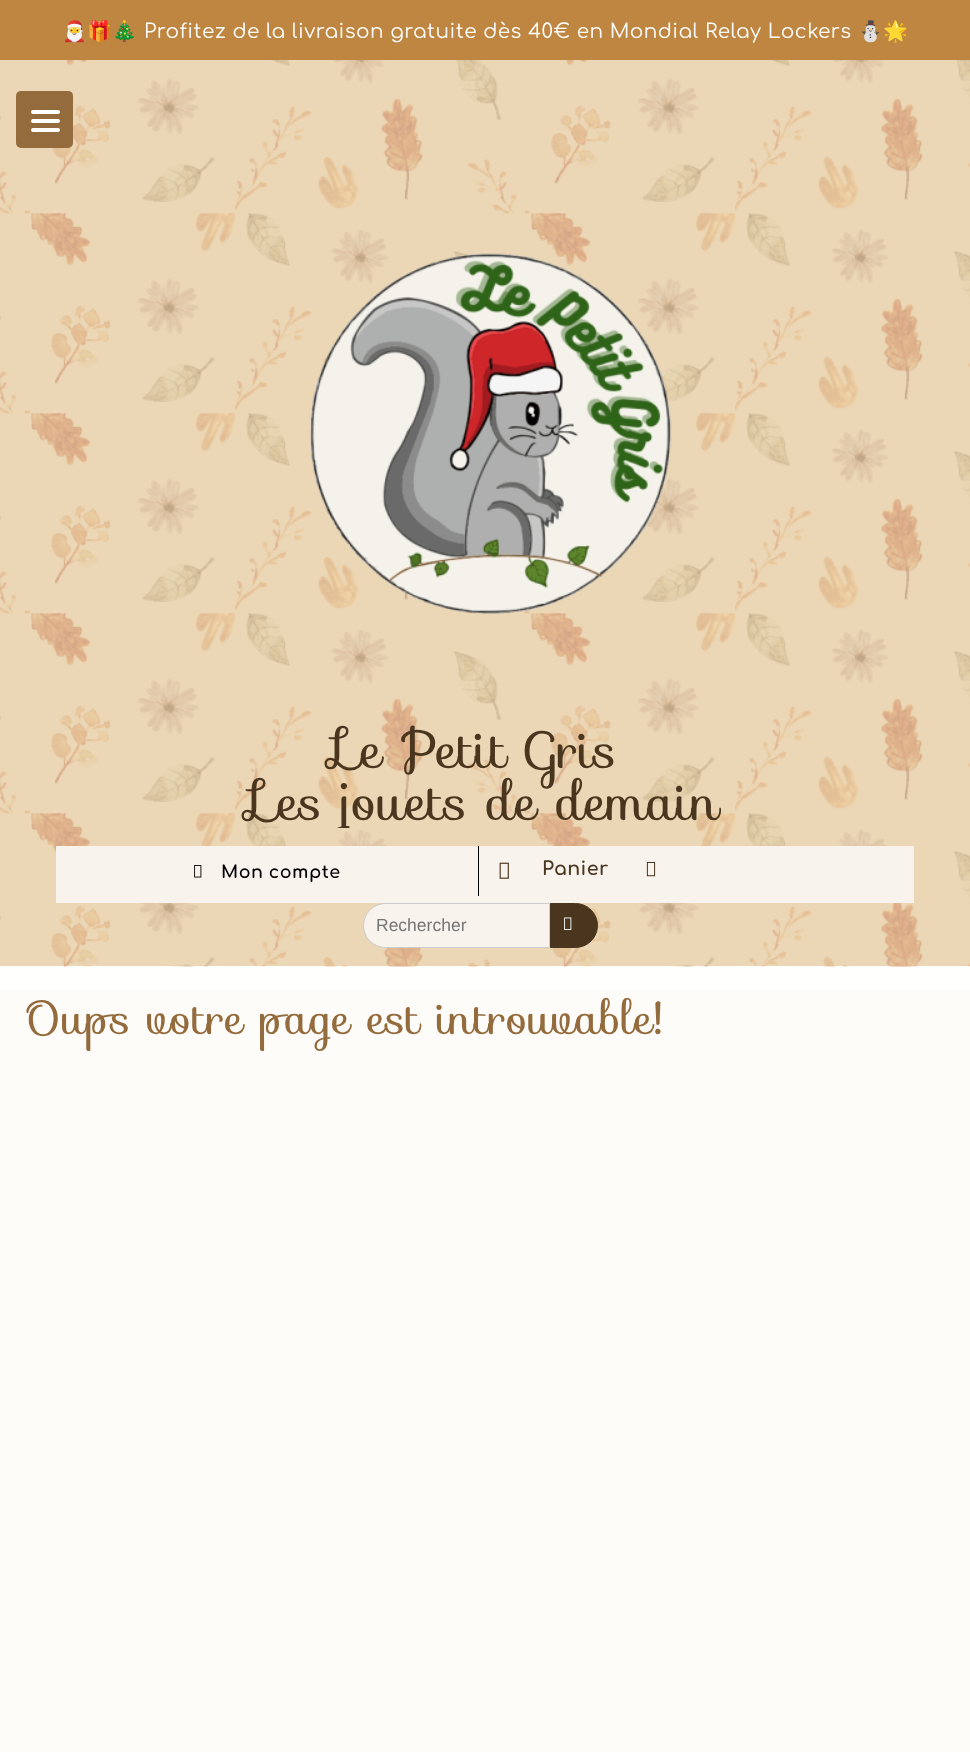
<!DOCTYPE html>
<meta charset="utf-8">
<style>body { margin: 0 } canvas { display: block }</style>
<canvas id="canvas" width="970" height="1752"></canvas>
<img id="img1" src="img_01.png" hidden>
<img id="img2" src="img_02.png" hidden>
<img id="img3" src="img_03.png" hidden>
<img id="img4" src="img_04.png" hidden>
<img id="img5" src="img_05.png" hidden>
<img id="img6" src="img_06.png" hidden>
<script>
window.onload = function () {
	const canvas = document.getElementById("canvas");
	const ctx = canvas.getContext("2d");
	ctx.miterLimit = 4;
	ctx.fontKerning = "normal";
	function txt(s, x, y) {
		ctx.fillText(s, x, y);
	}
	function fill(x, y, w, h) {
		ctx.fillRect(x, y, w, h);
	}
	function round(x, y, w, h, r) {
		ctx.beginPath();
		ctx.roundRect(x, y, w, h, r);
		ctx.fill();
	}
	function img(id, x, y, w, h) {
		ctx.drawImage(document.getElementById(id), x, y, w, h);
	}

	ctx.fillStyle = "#FFFFFD";
	fill(0, 0, 970, 1752);
	ctx.fillStyle = "#BF8641";
	fill(0, 0, 970, 60);
	ctx.fillStyle = "#EBD7B6";
	fill(0, 60, 970, 906);
	img("img1", 0, 60, 970, 907);
	ctx.fillStyle = "#946B3C";
	round(16, 91, 57, 57, 5);
	ctx.beginPath();
	ctx.moveTo(19, 91.5);
	ctx.lineTo(34, 106.5);
	ctx.bezierCurveTo(35, 107.5, 35, 108.5, 34, 109);
	ctx.bezierCurveTo(33.5, 110, 32.5, 110, 31.5, 109);
	ctx.lineTo(16.5, 94);
	ctx.bezierCurveTo(17, 93, 18, 92, 19, 91.5);
	ctx.closePath();
	ctx.moveTo(54.5, 106.5);
	ctx.bezierCurveTo(54, 107.5, 54, 108.5, 54.5, 109);
	ctx.bezierCurveTo(55.5, 110, 56.5, 110, 57, 109);
	ctx.lineTo(72.5, 94);
	ctx.bezierCurveTo(72, 92.5, 71, 92, 69.5, 91.5);
	ctx.closePath();
	ctx.fill();
	ctx.fillStyle = "#FFFFFF";
	round(31, 110, 29, 4, 2);
	round(31, 119, 29, 4, 2);
	round(31, 128, 29, 4, 2);
	img("img2", 310, 253, 362, 361);
	ctx.fillStyle = "#F9F3ED";
	fill(56, 846, 858, 57);
	ctx.fillStyle = "#000000";
	fill(478, 846, 1, 50);
	img("img3", 194, 865, 8, 13);
	img("img4", 499, 862, 10, 17);
	img("img5", 646, 861, 10, 16);
	ctx.fillStyle = "#F9F3ED";
	ctx.beginPath();
	ctx.roundRect(363.5, 903.5, 186, 44, [22, 0, 0, 22]);
	ctx.fill();
	ctx.strokeStyle = "#CCCCCC";
	ctx.stroke();
	ctx.fillStyle = "#4A361E";
	ctx.beginPath();
	ctx.roundRect(550.5, 903.5, 47, 44, [0, 22, 22, 0]);
	ctx.fill();
	ctx.strokeStyle = "#4A361E";
	ctx.stroke();
	img("img6", 564, 917, 8, 13);
	ctx.fillStyle = "#FEFCF8";
	fill(0, 990, 970, 762);
	ctx.letterSpacing = "0.45px";
	ctx.font = "20px Noto Color Emoji";
	ctx.fillStyle = "#FFFFFF";
	txt("🎅🎁🎄", 62, 38);
	ctx.font = "20px Comfortaa";
	txt("Profitez de la livraison gratuite dès 40€ en Mondial Relay Lockers", 144, 38);
	ctx.font = "20px Noto Color Emoji";
	txt("⛄🌟", 858, 38);
	ctx.font = "52.5px Sofia";
	ctx.fillStyle = "#4A361E";
	txt("Le Petit Gris", 334, 768);
	ctx.save();
	ctx.beginPath();
	ctx.rect(56, 723, 858, 105);
	ctx.clip();
	txt("Les jouets de demain", 251, 820);
	ctx.restore();
	ctx.font = "bold 17.5px Comfortaa";
	ctx.fillStyle = "#000000";
	txt("Mon compte", 221, 878);
	ctx.font = "bold 19px Comfortaa";
	ctx.fillStyle = "#4A361E";
	txt("Panier", 542, 875);
	ctx.letterSpacing = "0px";
	ctx.font = "17.5px Liberation Sans";
	ctx.fillStyle = "#757575";
	txt("Rechercher", 376, 931);
	ctx.letterSpacing = "0.45px";
	ctx.font = "45px Sofia";
	ctx.fillStyle = "#946B3C";
	txt("Oups votre page est introuvable!", 25, 1034);
};
</script>
